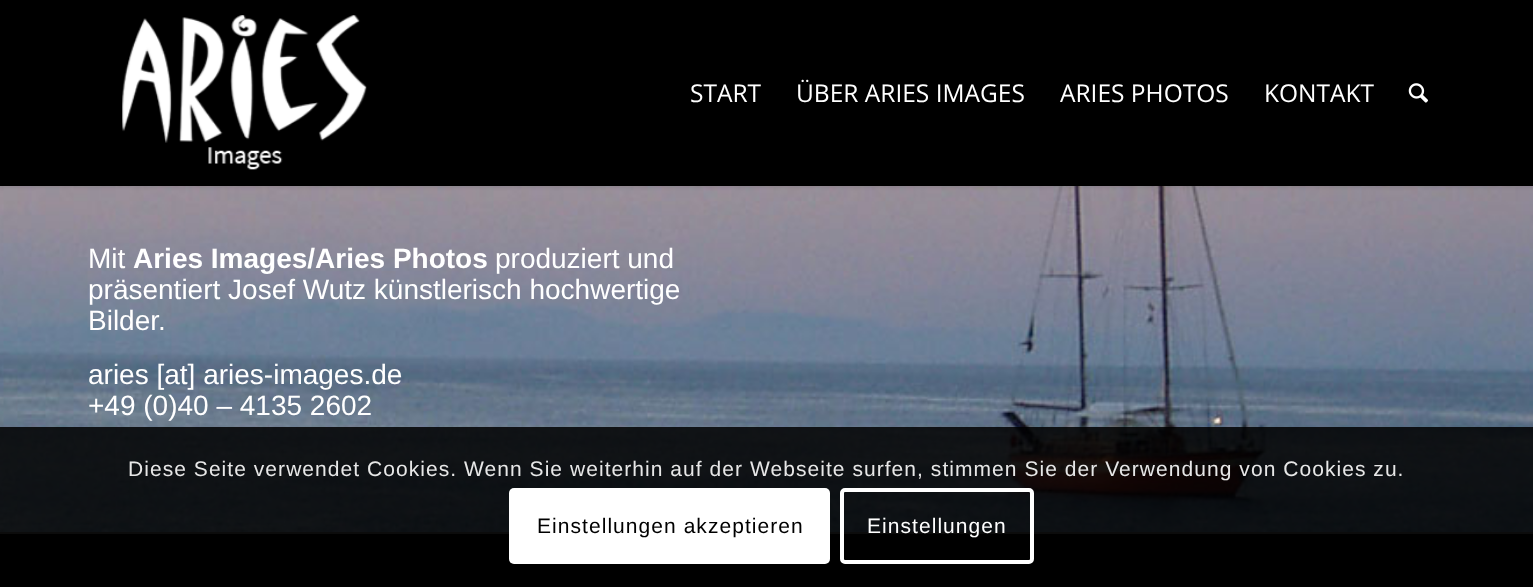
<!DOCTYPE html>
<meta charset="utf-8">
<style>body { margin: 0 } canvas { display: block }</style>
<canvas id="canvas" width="1533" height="587"></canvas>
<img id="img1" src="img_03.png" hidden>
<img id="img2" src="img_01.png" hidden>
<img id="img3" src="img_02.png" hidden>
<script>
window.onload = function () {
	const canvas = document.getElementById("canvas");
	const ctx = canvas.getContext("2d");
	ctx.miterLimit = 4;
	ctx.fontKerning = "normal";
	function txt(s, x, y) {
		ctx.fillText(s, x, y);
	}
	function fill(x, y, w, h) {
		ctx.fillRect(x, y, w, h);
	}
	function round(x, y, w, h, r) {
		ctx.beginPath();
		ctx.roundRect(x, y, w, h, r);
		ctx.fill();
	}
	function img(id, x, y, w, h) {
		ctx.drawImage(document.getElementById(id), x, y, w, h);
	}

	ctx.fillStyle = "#FFFFFF";
	fill(0, 0, 1533, 587);
	img("img1", 0, 186, 1533, 346);
	ctx.fillStyle = "rgba(0, 0, 0, 0.1)";
	ctx.filter = "blur(2px)";
	ctx.beginPath();
	ctx.rect(-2, -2, 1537, 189);
	ctx.fill();
	ctx.filter = "none";
	ctx.fillStyle = "#000000";
	fill(0, 0, 1533, 186);
	img("img2", 122, 15, 245, 155);
	img("img3", 1408, 83, 20, 20);
	fill(0, 534, 1533, 53);
	ctx.fillStyle = "#555555";
	fill(0, 532, 1533, 2);
	ctx.fillStyle = "rgba(0, 0, 0, 0.85)";
	fill(0, 427, 1533, 107);
	ctx.fillStyle = "#FFFFFF";
	round(509, 488, 321, 76, 5);
	ctx.beginPath();
	ctx.roundRect(842, 490, 190, 72, 3);
	ctx.strokeStyle = "#FFFFFF";
	ctx.lineWidth = 4;
	ctx.stroke();
	ctx.font = "24.5px Open Sans";
	txt("START", 690, 102);
	txt("ÜBER ARIES IMAGES", 796, 102);
	txt("ARIES PHOTOS", 1060, 102);
	txt("KONTAKT", 1264, 102);
	ctx.font = "28px Liberation Sans";
	txt("Mit", 88, 268);
	ctx.font = "bold 28px Liberation Sans";
	txt("Aries Images/Aries Photos", 133, 268);
	ctx.font = "28px Liberation Sans";
	txt("produziert und", 495, 268);
	txt("präsentiert Josef Wutz künstlerisch hochwertige", 88, 299);
	txt("Bilder.", 88, 330);
	txt("aries [at] aries-images.de", 88, 384);
	txt("+49 (0)40 – 4135 2602", 88, 415);
	ctx.letterSpacing = "1.05px";
	ctx.font = "21px Liberation Sans";
	ctx.fillStyle = "#E7E7E7";
	txt("Diese Seite verwendet Cookies. Wenn Sie weiterhin auf der Webseite surfen, stimmen Sie der Verwendung von Cookies zu.", 128, 476);
	ctx.fillStyle = "#000000";
	txt("Einstellungen akzeptieren", 537, 533);
	ctx.fillStyle = "#FFFFFF";
	txt("Einstellungen", 867, 533);
};
</script>
